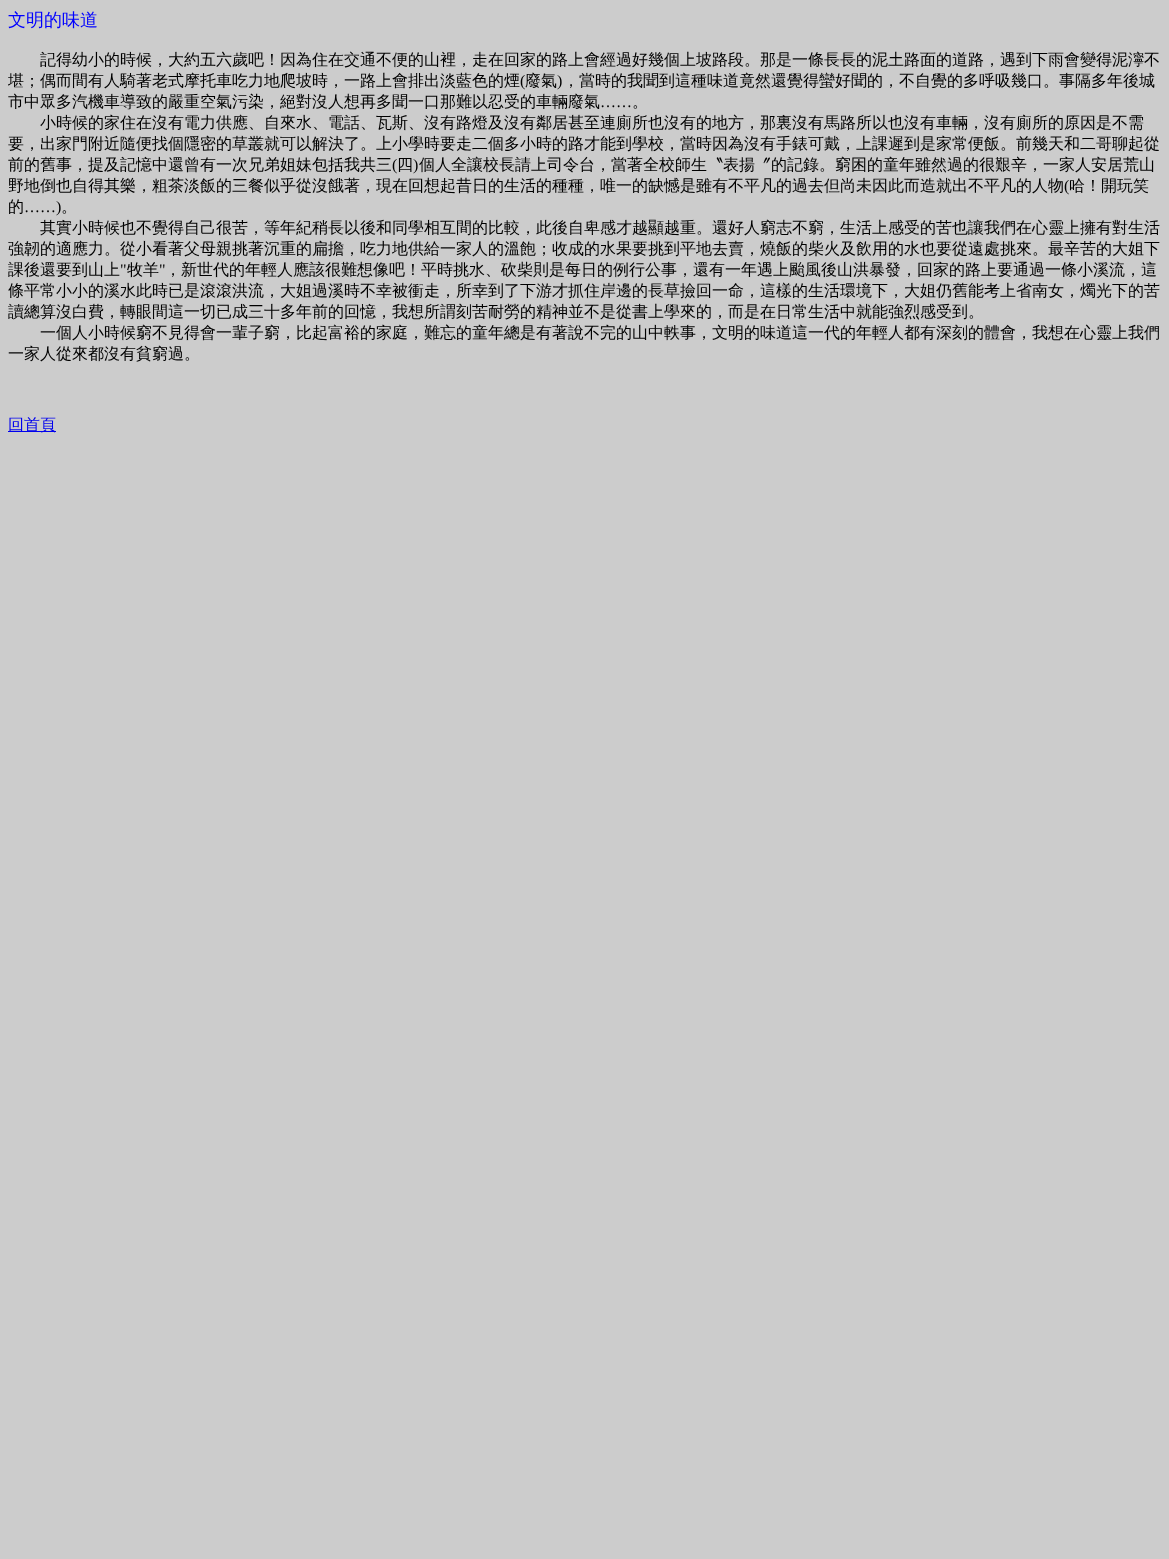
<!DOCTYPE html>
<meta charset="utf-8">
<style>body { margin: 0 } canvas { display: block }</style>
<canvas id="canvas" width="1169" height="1559"></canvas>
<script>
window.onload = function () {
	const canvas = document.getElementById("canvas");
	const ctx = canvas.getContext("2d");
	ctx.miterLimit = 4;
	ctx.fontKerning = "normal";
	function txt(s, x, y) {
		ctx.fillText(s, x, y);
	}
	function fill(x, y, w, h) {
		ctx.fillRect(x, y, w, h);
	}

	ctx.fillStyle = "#CCCCCC";
	fill(0, 0, 1169, 1559);
	ctx.fillStyle = "#0000EE";
	fill(8, 431, 48, 1);
	ctx.font = "500 18px WenQuanYi Zen Hei";
	ctx.fillStyle = "#0000FF";
	txt("文明的味道", 8, 26);
	ctx.font = "500 16px WenQuanYi Zen Hei";
	ctx.fillStyle = "#000000";
	txt("記得幼小的時候，大約五六歲吧！因為住在交通不便的山裡，走在回家的路上會經過好幾個上坡路段。那是一條長長的泥土路面的道路，遇到下雨會變得泥濘不", 40, 65);
	txt("堪；偶而間有人騎著老式摩托車吃力地爬坡時，一路上會排出淡藍色的煙", 8, 86);
	ctx.font = "16px Liberation Serif";
	txt("(", 520, 86);
	ctx.font = "500 16px WenQuanYi Zen Hei";
	txt("廢氣", 525, 86);
	ctx.font = "16px Liberation Serif";
	txt(")", 557, 86);
	ctx.font = "500 16px WenQuanYi Zen Hei";
	txt("，當時的我聞到這種味道竟然還覺得蠻好聞的，不自覺的多呼吸幾口。事隔多年後城", 563, 86);
	txt("市中眾多汽機車導致的嚴重空氣污染，絕對沒人想再多聞一口那難以忍受的車輛廢氣", 8, 107);
	ctx.font = "16px Liberation Serif";
	txt("……", 600, 107);
	ctx.font = "500 16px WenQuanYi Zen Hei";
	txt("。", 632, 107);
	txt("小時候的家住在沒有電力供應、自來水、電話、瓦斯、沒有路燈及沒有鄰居甚至連廁所也沒有的地方，那裏沒有馬路所以也沒有車輛，沒有廁所的原因是不需", 40, 128);
	txt("要，出家門附近隨便找個隱密的草叢就可以解決了。上小學時要走二個多小時的路才能到學校，當時因為沒有手錶可戴，上課遲到是家常便飯。前幾天和二哥聊起從", 8, 149);
	txt("前的舊事，提及記憶中還曾有一次兄弟姐妹包括我共三", 8, 170);
	ctx.font = "16px Liberation Serif";
	txt("(", 392, 170);
	ctx.font = "500 16px WenQuanYi Zen Hei";
	txt("四", 397, 170);
	ctx.font = "16px Liberation Serif";
	txt(")", 413, 170);
	ctx.font = "500 16px WenQuanYi Zen Hei";
	txt("個人全讓校長請上司令台，當著全校師生〝表揚〞的記錄。窮困的童年雖然過的很艱辛，一家人安居荒山", 419, 170);
	txt("野地倒也自得其樂，粗茶淡飯的三餐似乎從沒餓著，現在回想起昔日的生活的種種，唯一的缺憾是雖有不平凡的過去但尚未因此而造就出不平凡的人物", 8, 191);
	ctx.font = "16px Liberation Serif";
	txt("(", 1064, 191);
	ctx.font = "500 16px WenQuanYi Zen Hei";
	txt("哈！開玩笑", 1069, 191);
	txt("的", 8, 212);
	ctx.font = "16px Liberation Serif";
	txt("……)", 24, 212);
	ctx.font = "500 16px WenQuanYi Zen Hei";
	txt("。", 61, 212);
	txt("其實小時候也不覺得自己很苦，等年紀稍長以後和同學相互間的比較，此後自卑感才越顯越重。還好人窮志不窮，生活上感受的苦也讓我們在心靈上擁有對生活", 40, 233);
	txt("強韌的適應力。從小看著父母親挑著沉重的扁擔，吃力地供給一家人的溫飽；收成的水果要挑到平地去賣，燒飯的柴火及飲用的水也要從遠處挑來。最辛苦的大姐下", 8, 254);
	txt("課後還要到山上", 8, 275);
	ctx.font = "16px Liberation Serif";
	txt("\"", 120, 275);
	ctx.font = "500 16px WenQuanYi Zen Hei";
	txt("牧羊", 127, 275);
	ctx.font = "16px Liberation Serif";
	txt("\"", 159, 275);
	ctx.font = "500 16px WenQuanYi Zen Hei";
	txt("，新世代的年輕人應該很難想像吧！平時挑水、砍柴則是每日的例行公事，還有一年遇上颱風後山洪暴發，回家的路上要通過一條小溪流，這", 165, 275);
	txt("條平常小小的溪水此時已是滾滾洪流，大姐過溪時不幸被衝走，所幸到了下游才抓住岸邊的長草撿回一命，這樣的生活環境下，大姐仍舊能考上省南女，燭光下的苦", 8, 296);
	txt("讀總算沒白費，轉眼間這一切已成三十多年前的回憶，我想所謂刻苦耐勞的精神並不是從書上學來的，而是在日常生活中就能強烈感受到。", 8, 317);
	txt("一個人小時候窮不見得會一輩子窮，比起富裕的家庭，難忘的童年總是有著說不完的山中軼事，文明的味道這一代的年輕人都有深刻的體會，我想在心靈上我們", 40, 338);
	txt("一家人從來都沒有貧窮過。", 8, 359);
	ctx.fillStyle = "#0000EE";
	txt("回首頁", 8, 430);
};
</script>
